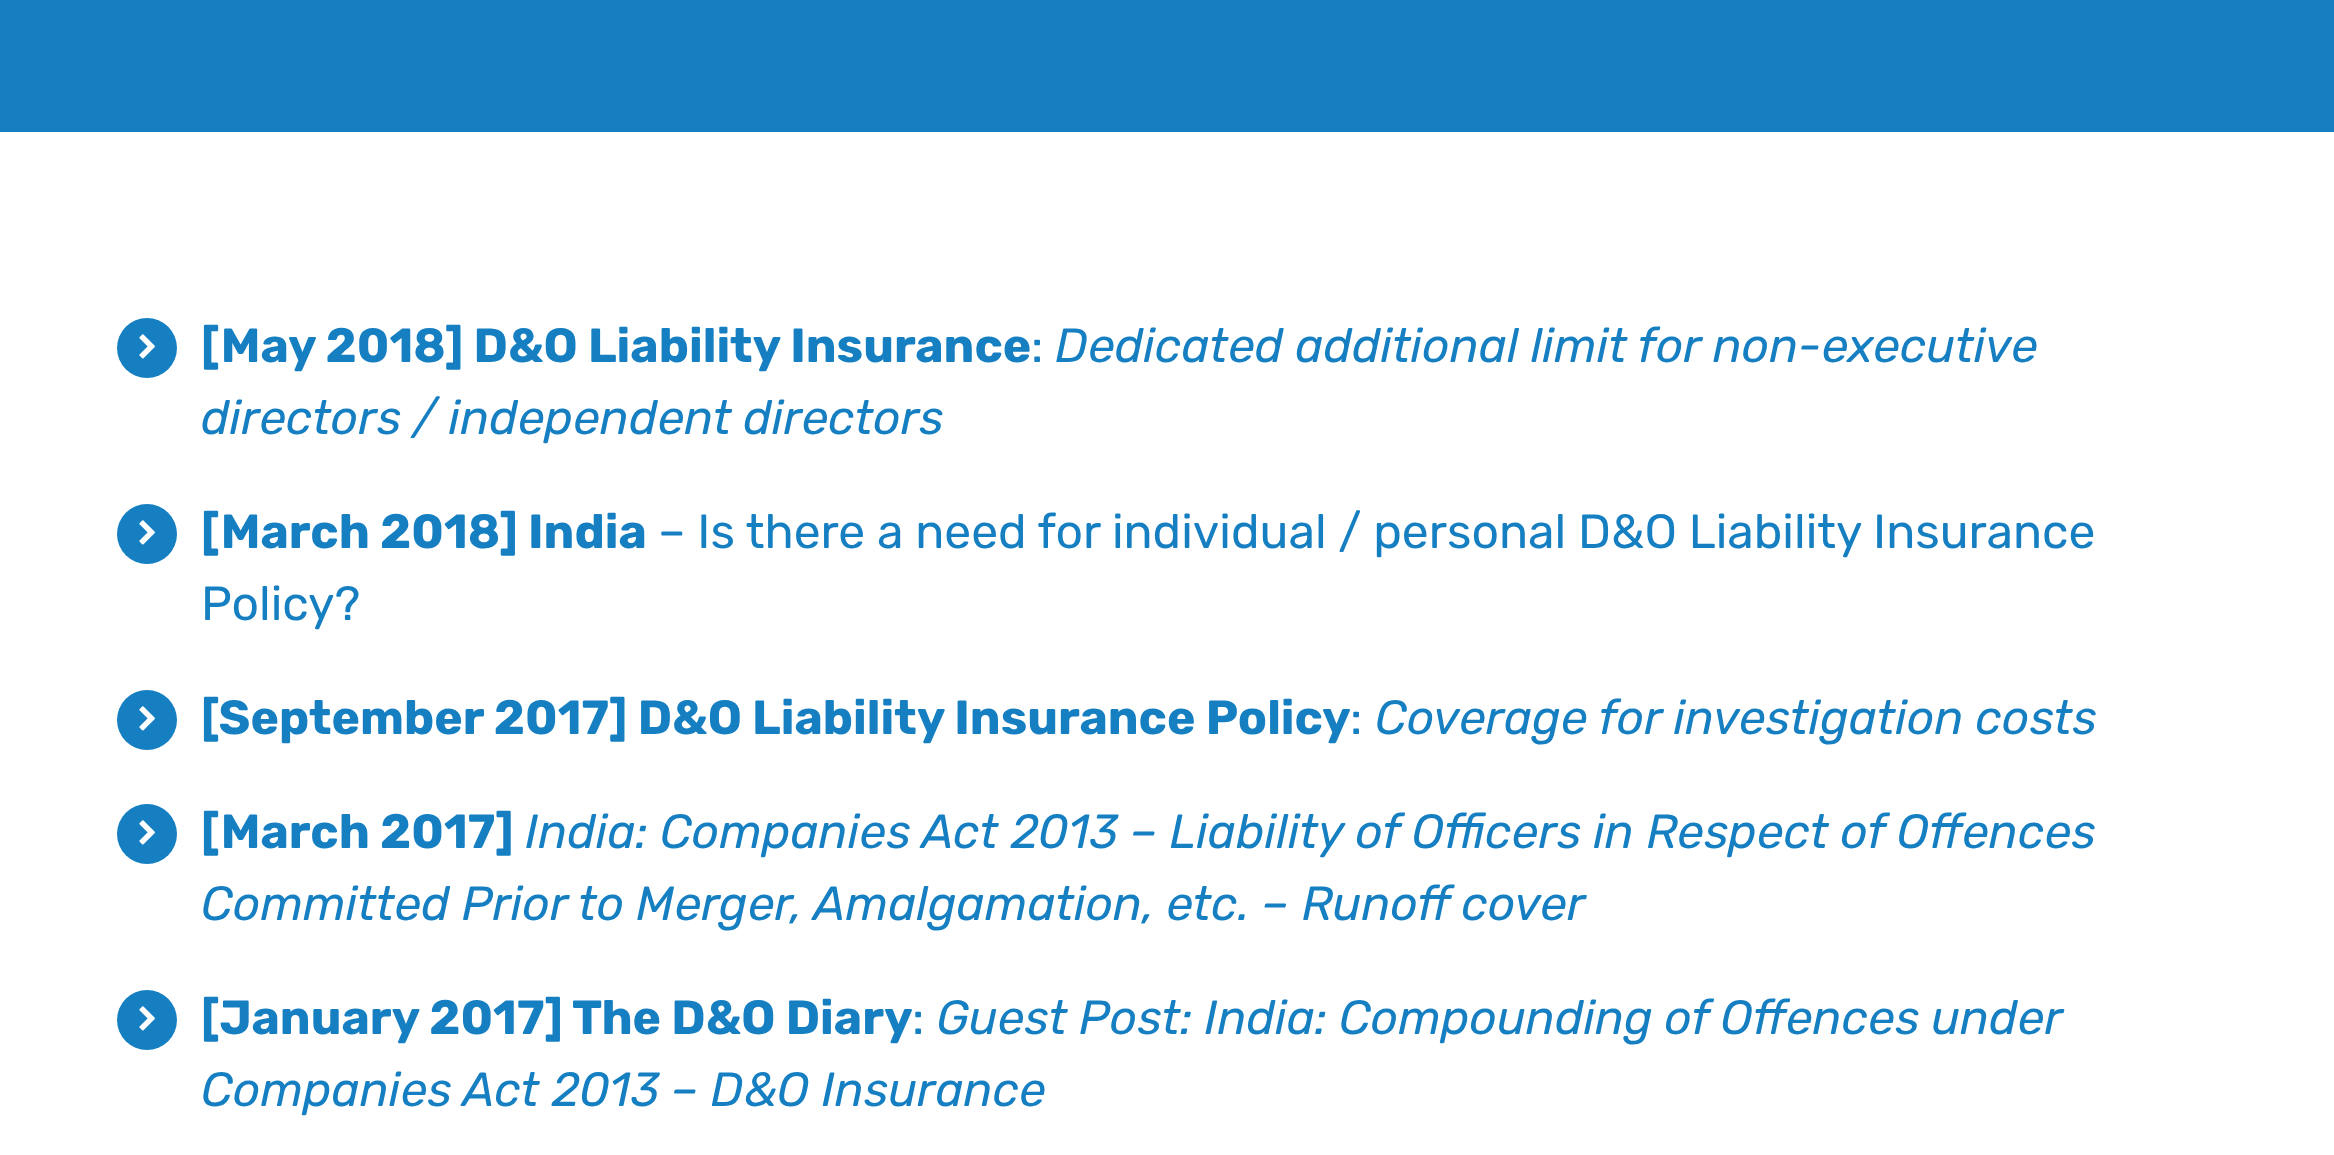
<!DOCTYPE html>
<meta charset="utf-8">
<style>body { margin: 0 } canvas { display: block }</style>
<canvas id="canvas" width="2334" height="1155"></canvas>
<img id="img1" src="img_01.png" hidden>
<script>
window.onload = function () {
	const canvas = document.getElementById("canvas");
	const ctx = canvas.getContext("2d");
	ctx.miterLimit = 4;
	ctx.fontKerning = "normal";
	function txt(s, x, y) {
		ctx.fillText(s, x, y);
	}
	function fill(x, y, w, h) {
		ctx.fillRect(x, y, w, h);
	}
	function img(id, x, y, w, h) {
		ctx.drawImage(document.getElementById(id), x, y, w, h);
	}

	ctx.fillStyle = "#FFFFFF";
	fill(0, 0, 2334, 1155);
	ctx.fillStyle = "#157FC2";
	fill(0, 0, 2334, 132);
	ctx.beginPath();
	ctx.arc(147, 348, 30, 0, Math.PI * 2);
	ctx.fill();
	img("img1", 139, 334, 16, 25);
	ctx.beginPath();
	ctx.arc(147, 534, 30, 0, Math.PI * 2);
	ctx.fill();
	img("img1", 139, 520, 16, 25);
	ctx.beginPath();
	ctx.arc(147, 720, 30, 0, Math.PI * 2);
	ctx.fill();
	img("img1", 139, 706, 16, 25);
	ctx.beginPath();
	ctx.arc(147, 834, 30, 0, Math.PI * 2);
	ctx.fill();
	img("img1", 139, 820, 16, 25);
	ctx.beginPath();
	ctx.arc(147, 1020, 30, 0, Math.PI * 2);
	ctx.fill();
	img("img1", 139, 1006, 16, 25);
	ctx.font = "bold 48px Rubik";
	txt("[May 2018] D&O Liability Insurance", 201, 362);
	ctx.font = "48px Rubik";
	txt(":", 1031, 362);
	ctx.font = "italic 48px Rubik";
	txt("Dedicated additional limit for non-executive", 1055, 362);
	txt("directors / independent directors", 201, 434);
	ctx.font = "bold 48px Rubik";
	txt("[March 2018] India", 201, 548);
	ctx.font = "48px Rubik";
	txt("– Is there a need for individual / personal D&O Liability Insurance", 658, 548);
	txt("Policy?", 201, 620);
	ctx.font = "bold 48px Rubik";
	txt("[September 2017] D&O Liability Insurance Policy", 201, 734);
	ctx.font = "48px Rubik";
	txt(":", 1350, 734);
	ctx.font = "italic 48px Rubik";
	txt("Coverage for investigation costs", 1375, 734);
	ctx.font = "bold 48px Rubik";
	txt("[March 2017]", 201, 848);
	ctx.font = "italic 48px Rubik";
	txt("India: Companies Act 2013 – Liability of Officers in Respect of Offences", 525, 848);
	txt("Committed Prior to Merger, Amalgamation, etc. – Runoff cover", 201, 920);
	ctx.font = "bold 48px Rubik";
	txt("[January 2017] The D&O Diary", 201, 1034);
	ctx.font = "48px Rubik";
	txt(":", 912, 1034);
	ctx.wordSpacing = "-0.25px";
	ctx.font = "italic 48px Rubik";
	txt("Guest Post: India: Compounding of Offences under", 936, 1034);
	ctx.wordSpacing = "0px";
	txt("Companies Act 2013 – D&O Insurance", 201, 1106);
};
</script>
